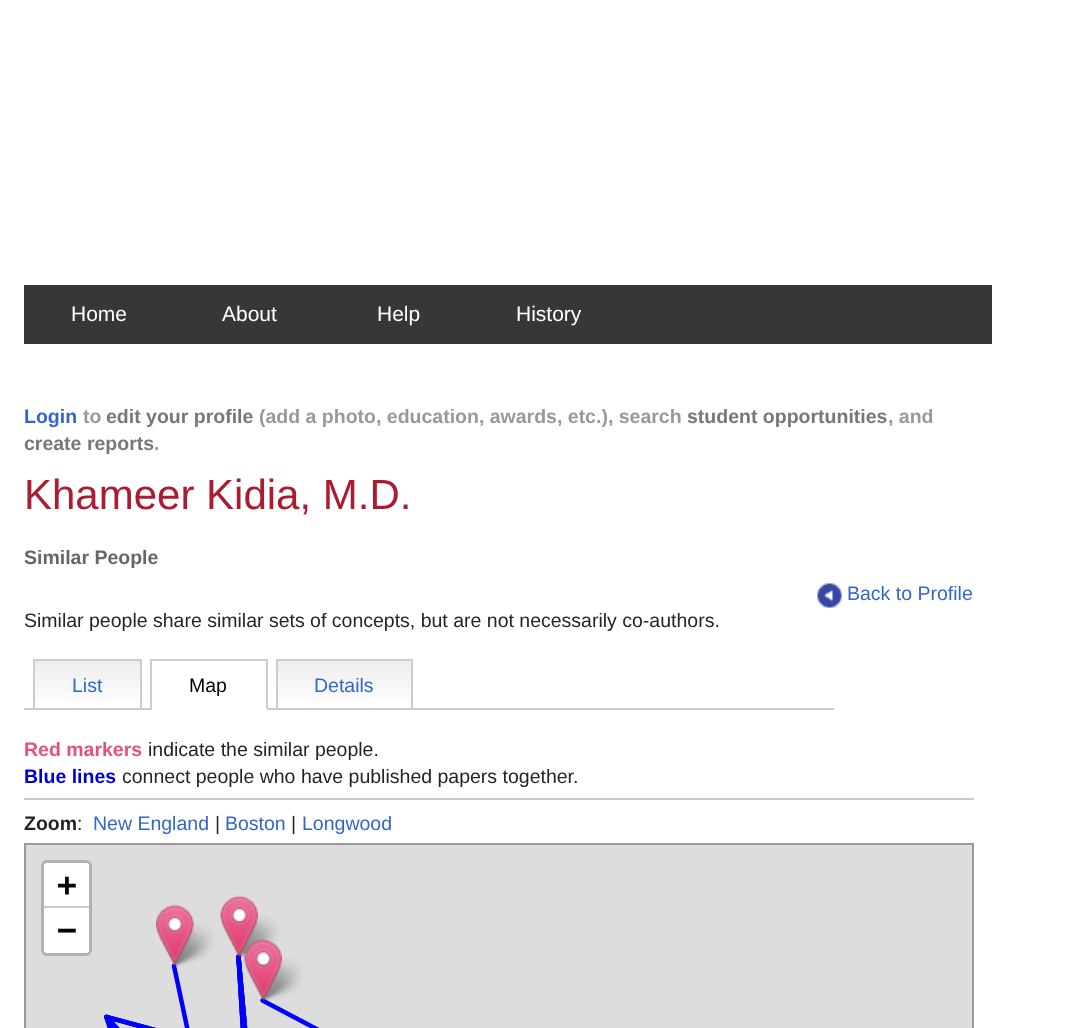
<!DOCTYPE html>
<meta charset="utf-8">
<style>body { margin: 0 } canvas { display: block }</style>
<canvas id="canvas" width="1076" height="1028"></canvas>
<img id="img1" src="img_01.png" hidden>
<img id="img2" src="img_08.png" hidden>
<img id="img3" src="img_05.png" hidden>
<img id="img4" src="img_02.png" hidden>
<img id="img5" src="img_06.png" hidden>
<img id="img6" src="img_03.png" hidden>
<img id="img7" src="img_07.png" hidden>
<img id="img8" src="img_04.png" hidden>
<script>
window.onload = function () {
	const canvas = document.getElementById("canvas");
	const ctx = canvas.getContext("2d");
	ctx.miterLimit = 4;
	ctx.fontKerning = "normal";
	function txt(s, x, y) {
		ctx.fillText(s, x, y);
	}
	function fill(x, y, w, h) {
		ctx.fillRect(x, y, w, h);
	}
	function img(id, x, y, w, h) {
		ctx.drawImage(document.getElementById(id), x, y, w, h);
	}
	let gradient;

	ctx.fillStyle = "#FFFFFF";
	fill(0, 0, 1076, 1028);
	ctx.fillStyle = "#383737";
	fill(24, 285, 968, 59);
	img("img1", 817, 583, 25, 25);
	ctx.fillStyle = "#CCCCCC";
	fill(24, 708, 810, 2);
	gradient = ctx.createLinearGradient(87, 660, 87, 708);
	gradient.addColorStop(0, "#EDEDED");
	gradient.addColorStop(1, "#FFFFFF");
	ctx.fillStyle = gradient;
	fill(35, 661, 105, 40);
	ctx.fillStyle = "#CCCCCC";
	fill(33, 659, 108, 2);
	fill(140, 659, 2, 49);
	fill(33, 659, 2, 49);
	fill(150, 659, 117, 2);
	fill(266, 659, 2, 51);
	ctx.fillStyle = "#FFFFFF";
	fill(150, 708, 117, 2);
	ctx.fillStyle = "#CCCCCC";
	fill(150, 659, 2, 51);
	gradient = ctx.createLinearGradient(344, 660, 344, 708);
	gradient.addColorStop(0, "#EDEDED");
	gradient.addColorStop(1, "#FFFFFF");
	ctx.fillStyle = gradient;
	fill(278, 661, 133, 40);
	ctx.fillStyle = "#CCCCCC";
	fill(276, 659, 137, 2);
	fill(411, 659, 2, 49);
	fill(276, 659, 2, 49);
	ctx.fillStyle = "#C8C9CA";
	fill(24, 798, 950, 2);
	ctx.fillStyle = "#DDDDDD";
	ctx.beginPath();
	ctx.rect(25, 844, 948, 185);
	ctx.fill();
	ctx.strokeStyle = "#999999";
	ctx.lineWidth = 2;
	ctx.stroke();
	ctx.beginPath();
	ctx.roundRect(42.5, 861.5, 48, 93, 4.5);
	ctx.strokeStyle = "#B1B1B1";
	ctx.lineWidth = 3;
	ctx.stroke();
	ctx.fillStyle = "#FFFFFF";
	ctx.beginPath();
	ctx.roundRect(44, 863, 45, 45, [3, 3, 0, 0]);
	ctx.fill();
	ctx.fillStyle = "#CCCCCC";
	fill(44, 906, 45, 2);
	ctx.fillStyle = "#FFFFFF";
	ctx.beginPath();
	ctx.roundRect(44, 908, 45, 45, [0, 0, 3, 3]);
	ctx.fill();
	img("img2", 104, 954, 216, 74);
	img("img3", 169, 923, 46, 44);
	img("img4", 156, 904, 38, 62);
	img("img5", 234, 915, 45, 43);
	img("img6", 220, 895, 38, 62);
	img("img7", 258, 958, 45, 43);
	img("img8", 244, 939, 38, 62);
	ctx.font = "21px Liberation Sans";
	txt("Home", 71, 321);
	txt("About", 222, 321);
	txt("Help", 377, 321);
	txt("History", 516, 321);
	ctx.font = "bold 19.5px Liberation Sans";
	ctx.fillStyle = "#3366CC";
	txt("Login", 24, 423);
	ctx.fillStyle = "#999999";
	txt("to", 83, 423);
	ctx.fillStyle = "#777777";
	txt("edit your profile", 106, 423);
	ctx.fillStyle = "#999999";
	txt("(add a photo, education, awards, etc.), search", 259, 423);
	ctx.fillStyle = "#777777";
	txt("student opportunities", 687, 423);
	ctx.fillStyle = "#999999";
	txt(", and", 888, 423);
	ctx.fillStyle = "#777777";
	txt("create reports", 24, 450);
	ctx.fillStyle = "#999999";
	txt(".", 154, 450);
	ctx.font = "42px Liberation Sans";
	ctx.fillStyle = "#AC1B30";
	txt("Khameer Kidia, M.D.", 24, 509);
	ctx.font = "bold 19.5px Liberation Sans";
	ctx.fillStyle = "#666666";
	txt("Similar People", 24, 564);
	ctx.font = "19.5px Liberation Sans";
	ctx.fillStyle = "#3366CC";
	txt("Back to Profile", 847, 600);
	ctx.fillStyle = "#212529";
	txt("Similar people share similar sets of concepts, but are not necessarily co-authors.", 24, 627);
	ctx.fillStyle = "#3366CC";
	txt("List", 72, 692);
	ctx.fillStyle = "#000000";
	txt("Map", 189, 692);
	ctx.fillStyle = "#3366CC";
	txt("Details", 314, 692);
	ctx.font = "bold 19.5px Liberation Sans";
	ctx.fillStyle = "#E5517F";
	txt("Red markers", 24, 756);
	ctx.font = "19.5px Liberation Sans";
	ctx.fillStyle = "#212529";
	txt("indicate the similar people.", 148, 756);
	ctx.font = "bold 19.5px Liberation Sans";
	ctx.fillStyle = "#0000CC";
	txt("Blue lines", 24, 783);
	ctx.font = "19.5px Liberation Sans";
	ctx.fillStyle = "#212529";
	txt("connect people who have published papers together.", 122, 783);
	ctx.font = "bold 19.5px Liberation Sans";
	txt("Zoom", 24, 830);
	ctx.font = "19.5px Liberation Sans";
	txt(":", 77, 830);
	ctx.fillStyle = "#3366CC";
	txt("New England", 93, 830);
	ctx.fillStyle = "#212529";
	txt("|", 215, 830);
	ctx.fillStyle = "#3366CC";
	txt("Boston", 225, 830);
	ctx.fillStyle = "#212529";
	txt("|", 291, 830);
	ctx.fillStyle = "#3366CC";
	txt("Longwood", 302, 830);
	ctx.font = "bold 33px DejaVu Sans Mono";
	ctx.fillStyle = "#000000";
	txt("+", 57, 896);
	txt("−", 57, 941);
};
</script>
